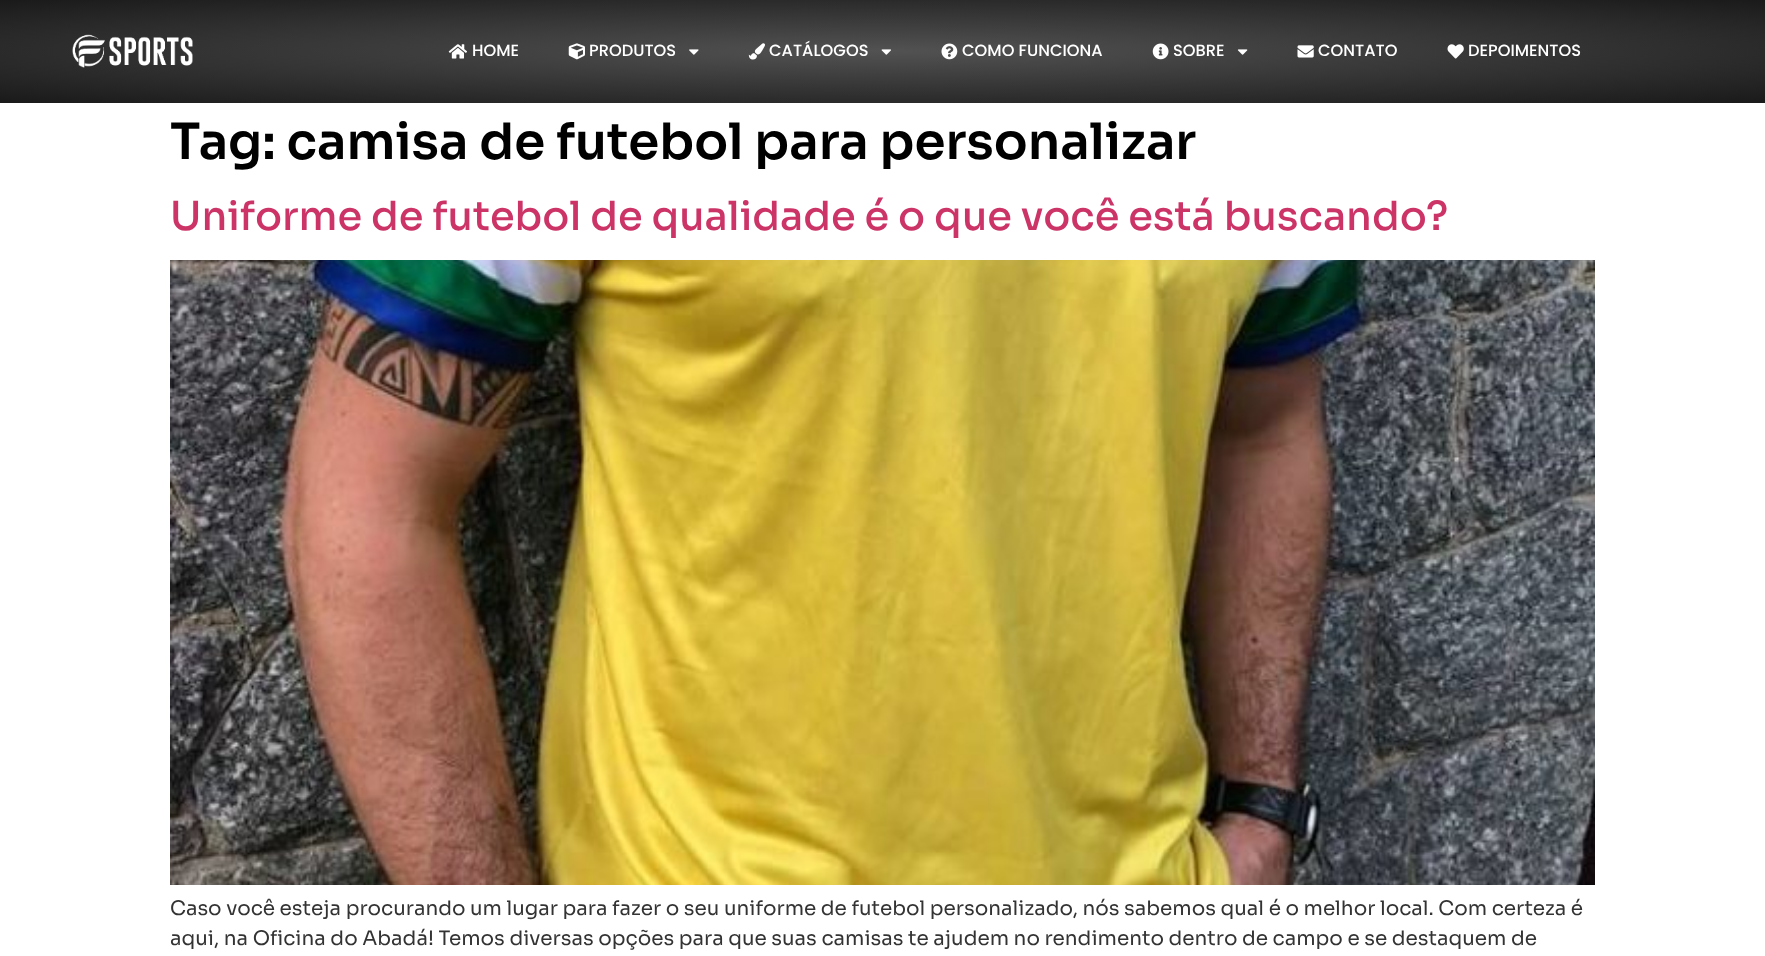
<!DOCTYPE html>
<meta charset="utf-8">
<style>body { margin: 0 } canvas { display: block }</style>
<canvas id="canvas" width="1765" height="956"></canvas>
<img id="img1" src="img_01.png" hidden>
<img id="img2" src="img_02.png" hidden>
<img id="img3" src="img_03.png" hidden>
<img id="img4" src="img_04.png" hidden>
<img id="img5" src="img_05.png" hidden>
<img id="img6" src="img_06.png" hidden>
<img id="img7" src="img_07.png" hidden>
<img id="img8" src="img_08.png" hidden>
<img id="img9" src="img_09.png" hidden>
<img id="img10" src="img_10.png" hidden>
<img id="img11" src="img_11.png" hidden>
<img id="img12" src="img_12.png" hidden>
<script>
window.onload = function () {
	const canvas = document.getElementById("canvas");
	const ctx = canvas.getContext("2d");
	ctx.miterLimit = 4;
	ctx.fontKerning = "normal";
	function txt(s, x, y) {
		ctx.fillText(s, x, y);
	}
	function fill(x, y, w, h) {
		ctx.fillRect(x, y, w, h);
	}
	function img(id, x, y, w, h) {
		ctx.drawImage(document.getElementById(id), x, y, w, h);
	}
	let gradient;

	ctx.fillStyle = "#FFFFFF";
	fill(0, 0, 1765, 956);
	gradient = ctx.createRadialGradient(883, 884, 0, 883, 884, 1248);
	gradient.addColorStop(0, "#525252");
	gradient.addColorStop(1, "#1A1A1A");
	ctx.fillStyle = gradient;
	ctx.beginPath();
	ctx.rect(0, 0, 1765, 103);
	ctx.save();
	ctx.clip();
	ctx.scale(1, 72 / 1248);
	ctx.fillRect(0, 0, 1765, 16571);
	ctx.restore();
	img("img1", 72, 34, 121, 34);
	img("img2", 448, 44, 19, 15);
	img("img3", 568, 43, 17, 17);
	img("img4", 689, 49, 10, 6);
	img("img5", 748, 43, 17, 17);
	img("img6", 881, 49, 10, 6);
	img("img7", 941, 43, 17, 17);
	img("img8", 1152, 43, 17, 17);
	img("img9", 1237, 49, 11, 6);
	img("img10", 1297, 45, 17, 13);
	img("img11", 1447, 44, 17, 15);
	img("img12", 170, 260, 1425, 625);
	ctx.font = "500 16.25px Poppins";
	ctx.fillStyle = "#FFFFFF";
	txt("HOME", 472, 56);
	txt("PRODUTOS", 589, 56);
	txt("CATÁLOGOS", 769, 56);
	txt("COMO FUNCIONA", 962, 56);
	txt("SOBRE", 1173, 56);
	txt("CONTATO", 1318, 56);
	txt("DEPOIMENTOS", 1468, 56);
	ctx.font = "600 50px Sora";
	ctx.fillStyle = "#000000";
	txt("Tag: camisa de futebol para personalizar", 170, 159);
	ctx.font = "500 40px Sora";
	ctx.fillStyle = "#CC3366";
	txt("Uniforme de futebol de qualidade é o que você está buscando?", 170, 230);
	ctx.font = "20px Sora";
	ctx.fillStyle = "#333333";
	txt("Caso você esteja procurando um lugar para fazer o seu uniforme de futebol personalizado, nós sabemos qual é o melhor local. Com certeza é", 170, 915);
	txt("aqui, na Oficina do Abadá! Temos diversas opções para que suas camisas te ajudem no rendimento dentro de campo e se destaquem de", 170, 945);
};
</script>
